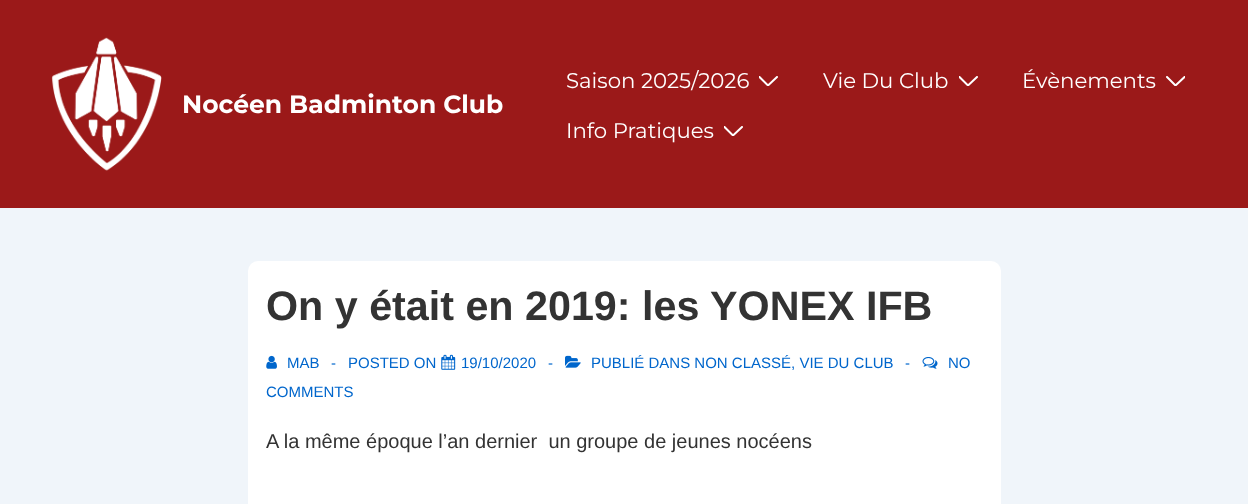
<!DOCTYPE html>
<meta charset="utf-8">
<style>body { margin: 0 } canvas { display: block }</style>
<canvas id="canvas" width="1248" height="504"></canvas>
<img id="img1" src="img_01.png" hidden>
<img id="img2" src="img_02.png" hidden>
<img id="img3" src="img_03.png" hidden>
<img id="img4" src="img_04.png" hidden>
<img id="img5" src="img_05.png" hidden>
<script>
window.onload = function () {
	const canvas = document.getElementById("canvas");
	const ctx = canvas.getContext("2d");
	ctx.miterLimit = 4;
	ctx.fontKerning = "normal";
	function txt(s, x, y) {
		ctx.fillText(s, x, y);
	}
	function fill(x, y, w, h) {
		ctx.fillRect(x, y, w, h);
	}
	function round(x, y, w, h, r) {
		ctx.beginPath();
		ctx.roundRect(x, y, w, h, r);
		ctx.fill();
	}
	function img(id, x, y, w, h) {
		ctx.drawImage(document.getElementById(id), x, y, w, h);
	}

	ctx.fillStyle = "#F0F5FA";
	fill(0, 0, 1248, 504);
	ctx.fillStyle = "#9B1919";
	fill(0, 0, 1248, 208);
	img("img1", 51, 37, 111, 134);
	ctx.save();
	ctx.beginPath();
	ctx.rect(759, 76, 19, 10);
	ctx.clip();
	ctx.beginPath();
	ctx.moveTo(759.5, 77);
	ctx.lineTo(768, 85.5);
	ctx.lineTo(777, 77);
	ctx.strokeStyle = "#FFFFFF";
	ctx.lineWidth = 2;
	ctx.lineCap = "round";
	ctx.stroke();
	ctx.restore();
	ctx.save();
	ctx.beginPath();
	ctx.rect(959, 76, 19, 10);
	ctx.clip();
	ctx.beginPath();
	ctx.moveTo(959.5, 77);
	ctx.lineTo(968, 85.5);
	ctx.lineTo(977, 77);
	ctx.strokeStyle = "#FFFFFF";
	ctx.lineWidth = 2;
	ctx.lineCap = "round";
	ctx.stroke();
	ctx.restore();
	ctx.save();
	ctx.beginPath();
	ctx.rect(1166, 76, 19, 10);
	ctx.clip();
	ctx.beginPath();
	ctx.moveTo(1167, 77);
	ctx.lineTo(1175.5, 85.5);
	ctx.lineTo(1184.5, 77);
	ctx.strokeStyle = "#FFFFFF";
	ctx.lineWidth = 2;
	ctx.lineCap = "round";
	ctx.stroke();
	ctx.restore();
	ctx.save();
	ctx.beginPath();
	ctx.rect(724, 126, 19, 10);
	ctx.clip();
	ctx.beginPath();
	ctx.moveTo(724.5, 127);
	ctx.lineTo(733, 135.5);
	ctx.lineTo(742, 127);
	ctx.strokeStyle = "#FFFFFF";
	ctx.lineWidth = 2;
	ctx.lineCap = "round";
	ctx.stroke();
	ctx.restore();
	ctx.fillStyle = "#FFFFFF";
	round(248, 261, 753, 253, 10);
	img("img2", 266, 355, 11, 14);
	img("img3", 441, 354, 15, 16);
	img("img4", 565, 355, 16, 13);
	img("img5", 922, 357, 16, 12);
	ctx.font = "bold 25px Montserrat";
	txt("Nocéen Badminton Club", 182, 113);
	ctx.font = "21.25px Montserrat";
	txt("Saison 2025/2026", 566, 88);
	txt("Vie Du Club", 823, 88);
	txt("Évènements", 1022, 88);
	txt("Info Pratiques", 566, 138);
	ctx.font = "bold 41.25px Liberation Sans";
	ctx.fillStyle = "#333333";
	txt("On y était en 2019: les YONEX IFB", 266, 320);
	ctx.font = "15px Liberation Sans";
	ctx.fillStyle = "#0066CC";
	txt("MAB", 287, 368);
	txt("-", 331, 368);
	txt("POSTED ON", 348, 368);
	txt("19/10/2020", 461, 368);
	txt("-", 548, 368);
	txt("PUBLIÉ DANS NON CLASSÉ, VIE DU CLUB", 591, 368);
	txt("-", 905, 368);
	txt("NO", 948, 368);
	txt("COMMENTS", 266, 397);
	ctx.font = "20px Liberation Sans";
	ctx.fillStyle = "#333333";
	txt("A la même époque l’an dernier  un groupe de jeunes nocéens", 266, 448);
};
</script>
